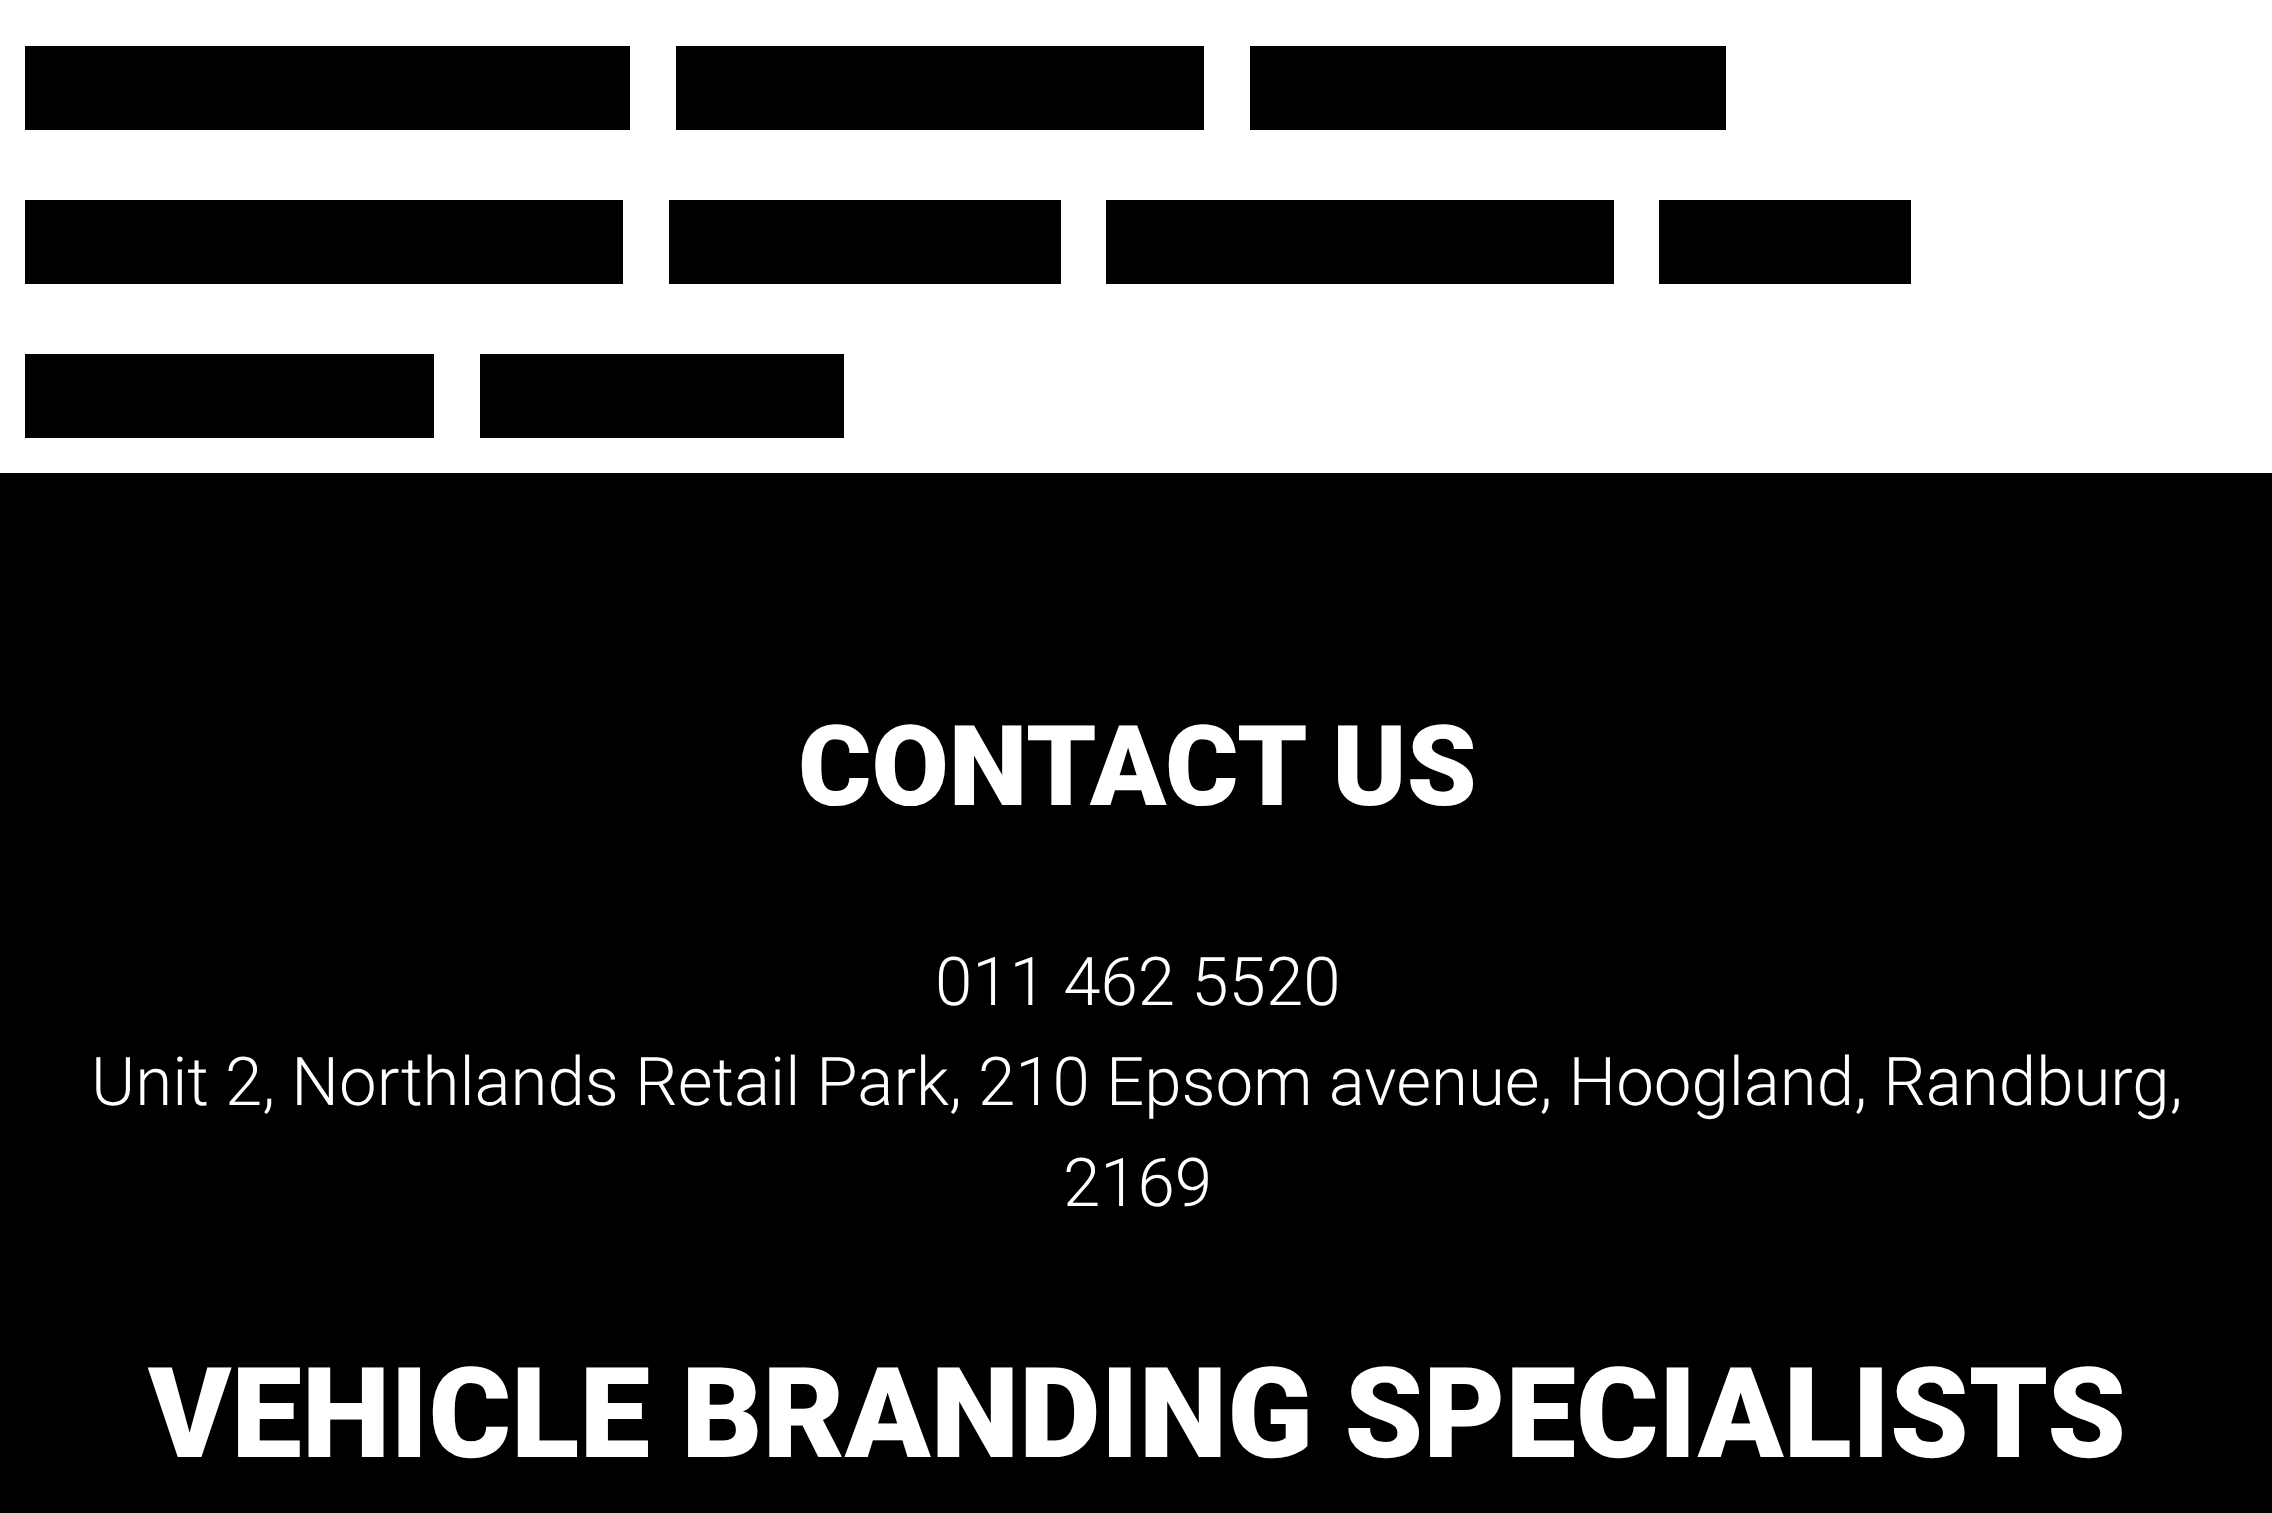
<!DOCTYPE html>
<meta charset="utf-8">
<style>body { margin: 0 } canvas { display: block }</style>
<canvas id="canvas" width="2272" height="1513"></canvas>
<script>
window.onload = function () {
	const canvas = document.getElementById("canvas");
	const ctx = canvas.getContext("2d");
	ctx.miterLimit = 4;
	ctx.fontKerning = "normal";
	function txt(s, x, y) {
		ctx.fillText(s, x, y);
	}
	function fill(x, y, w, h) {
		ctx.fillRect(x, y, w, h);
	}

	ctx.fillStyle = "#FFFFFF";
	fill(0, 0, 2272, 1513);
	ctx.fillStyle = "#000000";
	fill(25, 46, 605, 84);
	fill(676, 46, 528, 84);
	fill(1250, 46, 476, 84);
	fill(25, 200, 598, 84);
	fill(669, 200, 392, 84);
	fill(1106, 200, 508, 84);
	fill(1659, 200, 252, 84);
	fill(25, 354, 409, 84);
	fill(480, 354, 364, 84);
	fill(0, 473, 2272, 1040);
	ctx.font = "900 112px Roboto";
	ctx.fillStyle = "#FFFFFF";
	txt("CONTACT US", 798, 805);
	ctx.font = "300 67.2px Roboto";
	txt("011 462 5520", 935, 1005);
	ctx.wordSpacing = "-0.25px";
	txt("Unit 2, Northlands Retail Park, 210 Epsom avenue, Hoogland, Randburg,", 91, 1105);
	ctx.wordSpacing = "0px";
	txt("2169", 1063, 1206);
	ctx.font = "900 126px Roboto";
	txt("VEHICLE BRANDING SPECIALISTS", 148, 1457);
};
</script>
